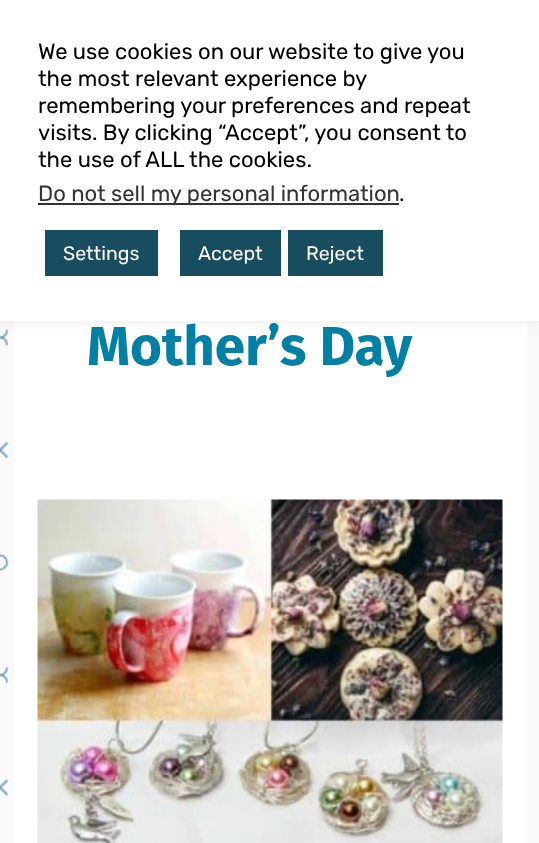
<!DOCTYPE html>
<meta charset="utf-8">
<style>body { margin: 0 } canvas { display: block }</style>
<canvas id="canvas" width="539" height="843"></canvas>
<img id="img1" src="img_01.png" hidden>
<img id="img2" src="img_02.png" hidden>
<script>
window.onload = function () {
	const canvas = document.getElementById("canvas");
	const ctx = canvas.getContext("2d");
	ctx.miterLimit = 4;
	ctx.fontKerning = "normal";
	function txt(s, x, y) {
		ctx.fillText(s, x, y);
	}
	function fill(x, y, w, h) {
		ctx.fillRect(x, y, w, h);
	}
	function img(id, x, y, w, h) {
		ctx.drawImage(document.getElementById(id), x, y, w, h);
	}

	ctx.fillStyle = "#F5F5F5";
	fill(0, 0, 539, 843);
	img("img1", 0, 321, 539, 522);
	ctx.fillStyle = "#FFFFFF";
	fill(14, 321, 513, 522);
	ctx.fillStyle = "rgba(172, 171, 171, 0.3)";
	ctx.filter = "blur(7.5px)";
	ctx.beginPath();
	ctx.rect(0, -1, 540, 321);
	ctx.fill();
	ctx.filter = "none";
	ctx.fillStyle = "#FFFFFF";
	fill(0, 0, 539, 321);
	ctx.fillStyle = "#333333";
	fill(38, 203, 361, 2);
	ctx.fillStyle = "#184C5F";
	fill(45, 230, 113, 46);
	fill(180, 230, 101, 46);
	fill(288, 230, 95, 46);
	img("img2", 37, 499, 466, 344);
	ctx.font = "300 22px Rubik";
	ctx.fillStyle = "#000000";
	txt("We use cookies on our website to give you", 38, 59);
	txt("the most relevant experience by", 38, 86);
	txt("remembering your preferences and repeat", 38, 113);
	txt("visits. By clicking “Accept”, you consent to", 38, 140);
	txt("the use of ALL the cookies.", 38, 167);
	ctx.fillStyle = "#333333";
	txt("Do not sell my personal information", 38, 201);
	ctx.fillStyle = "#000000";
	txt(".", 399, 201);
	ctx.font = "300 19.5px Rubik";
	ctx.fillStyle = "#FFFFFF";
	txt("Settings", 63, 260);
	txt("Accept", 198, 260);
	txt("Reject", 306, 260);
	ctx.font = "bold 54.75px Fira Sans";
	ctx.fillStyle = "#0080A4";
	txt("Mother’s Day", 87, 365);
};
</script>
